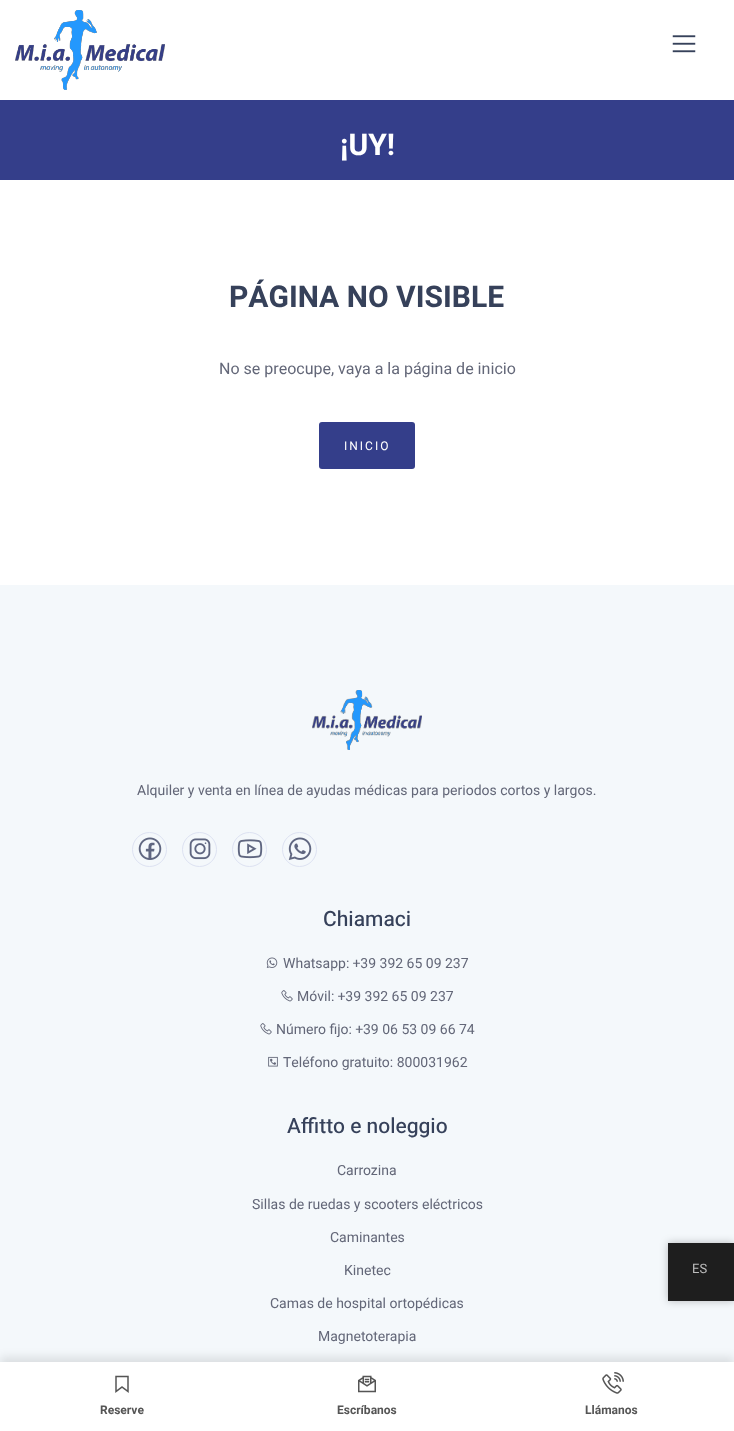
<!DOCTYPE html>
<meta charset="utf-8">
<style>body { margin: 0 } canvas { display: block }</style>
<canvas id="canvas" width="734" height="1431"></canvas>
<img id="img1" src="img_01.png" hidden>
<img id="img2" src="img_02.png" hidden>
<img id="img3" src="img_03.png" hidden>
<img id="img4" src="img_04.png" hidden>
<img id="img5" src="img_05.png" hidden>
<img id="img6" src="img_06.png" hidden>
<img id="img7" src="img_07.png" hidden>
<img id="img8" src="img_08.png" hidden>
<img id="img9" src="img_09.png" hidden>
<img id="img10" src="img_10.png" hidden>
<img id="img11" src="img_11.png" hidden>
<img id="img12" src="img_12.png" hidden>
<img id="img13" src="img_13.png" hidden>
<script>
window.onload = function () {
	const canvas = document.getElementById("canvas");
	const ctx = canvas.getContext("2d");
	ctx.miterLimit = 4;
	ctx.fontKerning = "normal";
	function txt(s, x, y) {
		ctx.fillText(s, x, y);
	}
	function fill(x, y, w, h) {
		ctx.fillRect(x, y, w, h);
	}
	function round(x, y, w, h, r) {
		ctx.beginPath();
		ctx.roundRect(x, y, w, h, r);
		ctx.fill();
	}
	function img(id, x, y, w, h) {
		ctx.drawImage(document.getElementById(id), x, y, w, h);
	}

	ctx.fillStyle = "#FFFFFF";
	fill(0, 0, 734, 1431);
	img("img1", 15, 10, 150, 80);
	img("img2", 672, 35, 24, 18);
	ctx.fillStyle = "#343E8A";
	fill(0, 100, 734, 80);
	round(319, 422, 96, 47, 3);
	ctx.fillStyle = "#F4F8FB";
	fill(0, 585, 734, 777);
	img("img3", 312, 690, 110, 60);
	ctx.beginPath();
	ctx.arc(149.5, 849.5, 17, 0, Math.PI * 2);
	ctx.strokeStyle = "#DDE2F2";
	ctx.stroke();
	img("img4", 138, 837, 24, 23);
	ctx.beginPath();
	ctx.arc(199.5, 849.5, 17, 0, Math.PI * 2);
	ctx.stroke();
	img("img5", 189, 838, 22, 22);
	ctx.beginPath();
	ctx.arc(249.5, 849.5, 17, 0, Math.PI * 2);
	ctx.stroke();
	img("img6", 237, 839, 26, 20);
	ctx.beginPath();
	ctx.arc(299.5, 849.5, 17, 0, Math.PI * 2);
	ctx.stroke();
	img("img7", 288, 837, 24, 23);
	img("img8", 266, 957, 12, 11);
	img("img9", 281, 990, 12, 12);
	img("img9", 260, 1023, 12, 12);
	img("img10", 268, 1056, 10, 11);
	ctx.fillStyle = "rgba(0, 0, 0, 0.25)";
	ctx.filter = "blur(4px)";
	ctx.beginPath();
	ctx.rect(668, 1243, 66, 58);
	ctx.fill();
	ctx.filter = "none";
	ctx.fillStyle = "#1E1E1E";
	fill(668, 1243, 66, 58);
	ctx.fillStyle = "rgba(0, 0, 0, 0.1)";
	ctx.filter = "blur(5px)";
	ctx.beginPath();
	ctx.rect(0, 1357, 734, 69);
	ctx.fill();
	ctx.filter = "none";
	ctx.fillStyle = "#FFFFFF";
	fill(0, 1362, 734, 69);
	img("img11", 115, 1375, 14, 18);
	img("img12", 358, 1375, 18, 18);
	img("img13", 602, 1372, 22, 22);
	ctx.font = "bold 30px Heebo";
	txt("¡UY!", 340, 155);
	ctx.fillStyle = "#36415A";
	txt("PÁGINA NO VISIBLE", 229, 307);
	ctx.font = "16px Heebo";
	ctx.fillStyle = "#636778";
	txt("No se preocupe, vaya a la página de inicio", 219, 374);
	ctx.letterSpacing = "2px";
	ctx.font = "12px Heebo";
	ctx.fillStyle = "#FFFFFF";
	txt("INICIO", 344, 450);
	ctx.letterSpacing = "0px";
	ctx.font = "14px Heebo";
	ctx.fillStyle = "#636778";
	txt("Alquiler y venta en línea de ayudas médicas para periodos cortos y largos.", 137, 795);
	ctx.font = "500 21px Heebo";
	ctx.fillStyle = "#36415A";
	txt("Chiamaci", 323, 926);
	ctx.font = "14px Heebo";
	ctx.fillStyle = "#636778";
	txt("Whatsapp: +39 392 65 09 237", 283, 968);
	txt("Móvil: +39 392 65 09 237", 297, 1001);
	txt("Número fijo: +39 06 53 09 66 74", 276, 1034);
	txt("Teléfono gratuito: 800031962", 283, 1067);
	ctx.font = "500 21px Heebo";
	ctx.fillStyle = "#36415A";
	txt("Affitto e noleggio", 287, 1133);
	ctx.font = "14px Heebo";
	ctx.fillStyle = "#636778";
	txt("Carrozina", 337, 1175);
	txt("Sillas de ruedas y scooters eléctricos", 252, 1209);
	txt("Caminantes", 330, 1242);
	txt("Kinetec", 344, 1275);
	txt("Camas de hospital ortopédicas", 270, 1308);
	txt("Magnetoterapia", 318, 1341);
	ctx.font = "13px Heebo";
	ctx.fillStyle = "#BDBDBD";
	txt("ES", 692, 1273);
	ctx.font = "bold 12px Heebo";
	ctx.fillStyle = "#555555";
	txt("Reserve", 100, 1414);
	txt("Escríbanos", 337, 1414);
	txt("Llámanos", 585, 1414);
};
</script>
